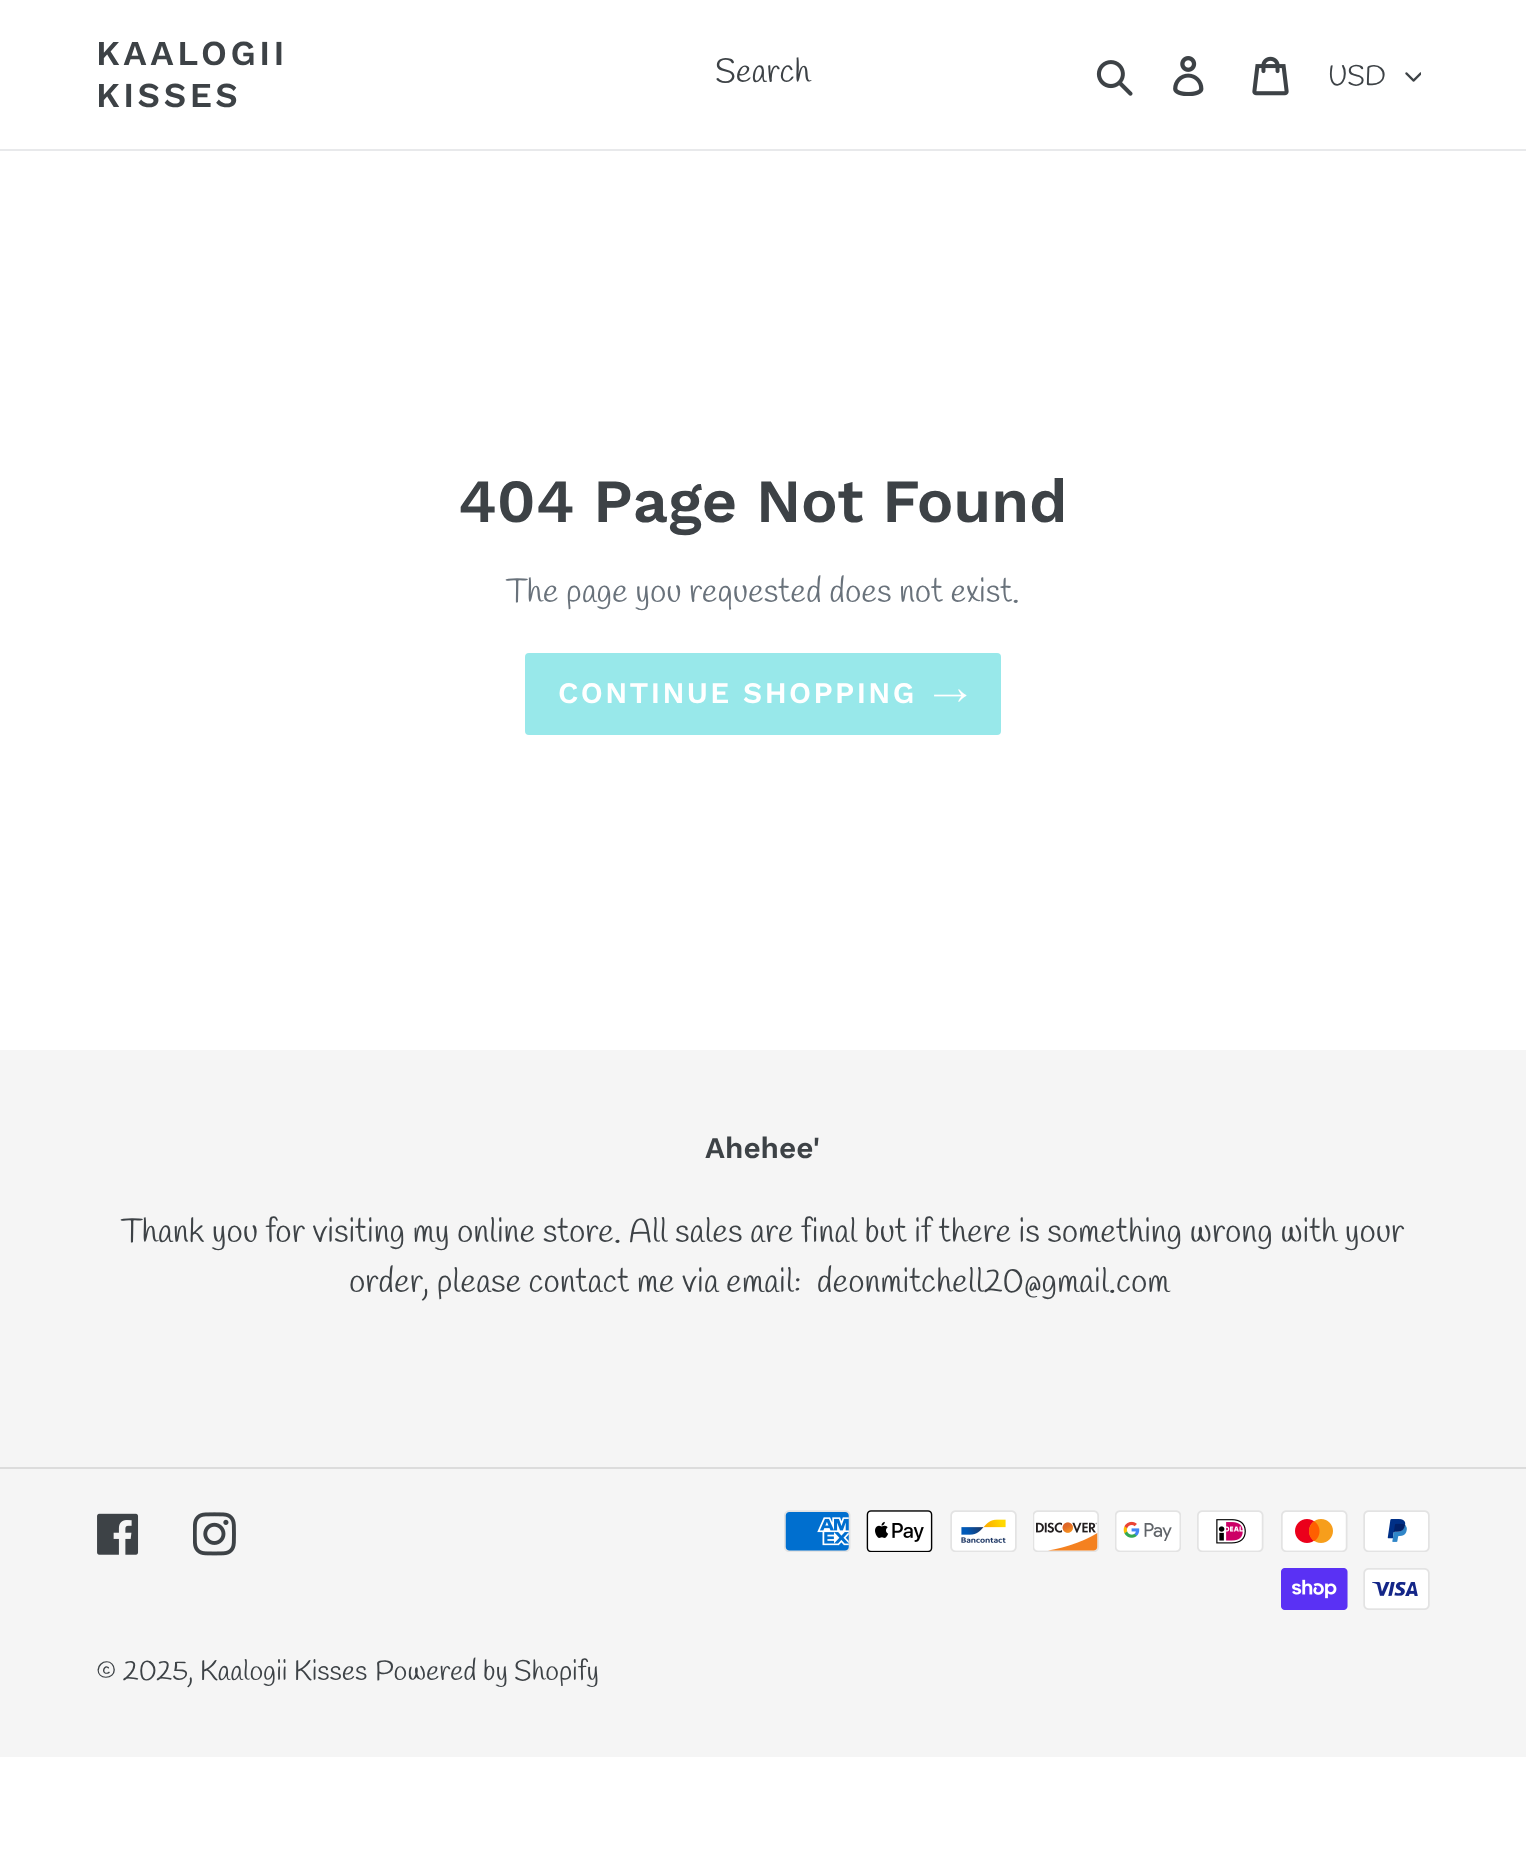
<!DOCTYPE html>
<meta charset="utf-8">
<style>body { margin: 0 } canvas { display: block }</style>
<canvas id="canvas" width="1526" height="1871"></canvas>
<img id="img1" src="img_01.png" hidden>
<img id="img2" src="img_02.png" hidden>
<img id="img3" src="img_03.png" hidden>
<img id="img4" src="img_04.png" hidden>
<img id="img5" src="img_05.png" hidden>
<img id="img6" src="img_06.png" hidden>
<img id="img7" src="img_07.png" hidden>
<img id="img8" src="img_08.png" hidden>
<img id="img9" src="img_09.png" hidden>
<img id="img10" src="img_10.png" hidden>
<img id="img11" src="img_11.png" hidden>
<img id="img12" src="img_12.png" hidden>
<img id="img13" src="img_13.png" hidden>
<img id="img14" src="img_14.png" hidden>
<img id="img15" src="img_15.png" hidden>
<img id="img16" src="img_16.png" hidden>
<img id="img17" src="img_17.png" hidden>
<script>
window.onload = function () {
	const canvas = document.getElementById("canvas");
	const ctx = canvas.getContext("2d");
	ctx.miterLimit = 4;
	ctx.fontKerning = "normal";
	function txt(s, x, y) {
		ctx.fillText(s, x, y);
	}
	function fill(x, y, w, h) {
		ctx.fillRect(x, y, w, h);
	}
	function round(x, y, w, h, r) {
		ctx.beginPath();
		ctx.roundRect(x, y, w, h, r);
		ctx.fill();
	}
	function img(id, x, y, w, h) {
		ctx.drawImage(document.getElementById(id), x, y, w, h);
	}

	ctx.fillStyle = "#FFFFFF";
	fill(0, 0, 1526, 1871);
	ctx.fillStyle = "#E8E9EB";
	fill(0, 149, 1526, 2);
	img("img1", 1096, 60, 37, 36);
	img("img2", 1173, 56, 31, 40);
	img("img3", 1252, 56, 37, 40);
	img("img4", 1405, 72, 16, 10);
	ctx.fillStyle = "#98E8EA";
	round(525, 653, 476, 82, 4);
	img("img5", 934, 689, 33, 13);
	ctx.fillStyle = "#F5F5F5";
	fill(0, 1050, 1526, 707);
	ctx.fillStyle = "#DCDCDC";
	fill(0, 1467, 1526, 2);
	img("img6", 97, 1513, 42, 42);
	img("img7", 193, 1512, 43, 44);
	img("img8", 784, 1510, 67, 42);
	img("img9", 866, 1510, 67, 42);
	img("img10", 950, 1510, 67, 42);
	img("img11", 1033, 1510, 66, 42);
	img("img12", 1115, 1510, 66, 42);
	img("img13", 1197, 1510, 67, 42);
	img("img14", 1281, 1510, 67, 42);
	img("img15", 1363, 1510, 67, 42);
	img("img16", 1281, 1568, 67, 42);
	img("img17", 1363, 1568, 67, 42);
	ctx.letterSpacing = "3.5px";
	ctx.font = "600 35px Work Sans";
	ctx.fillStyle = "#3D4246";
	txt("KAALOGII", 96, 65);
	txt("KISSES", 96, 107);
	ctx.letterSpacing = "0px";
	ctx.font = "33.25px Handlee";
	txt("Search", 715, 82);
	ctx.font = "28px Handlee";
	txt("USD", 1328, 85);
	ctx.font = "600 61.25px Work Sans";
	txt("404 Page Not Found", 458, 522);
	ctx.font = "33.25px Handlee";
	ctx.fillStyle = "#69727B";
	txt("The page you requested does not exist.", 506, 602);
	ctx.letterSpacing = "2.4px";
	ctx.font = "600 29.75px Work Sans";
	ctx.fillStyle = "#FFFFFF";
	txt("CONTINUE SHOPPING", 558, 703);
	ctx.letterSpacing = "0px";
	ctx.fillStyle = "#3D4246";
	txt("Ahehee'", 705, 1158);
	ctx.font = "33.25px Handlee";
	txt("Thank you for visiting my online store. All sales are final but if there is something wrong with your", 121, 1242);
	txt("order, please contact me via email:  deonmitchell20@gmail.com", 349, 1292);
	ctx.font = "28px Handlee";
	txt("© 2025, Kaalogii Kisses", 96, 1680);
	txt("Powered by Shopify", 375, 1680);
};
</script>
